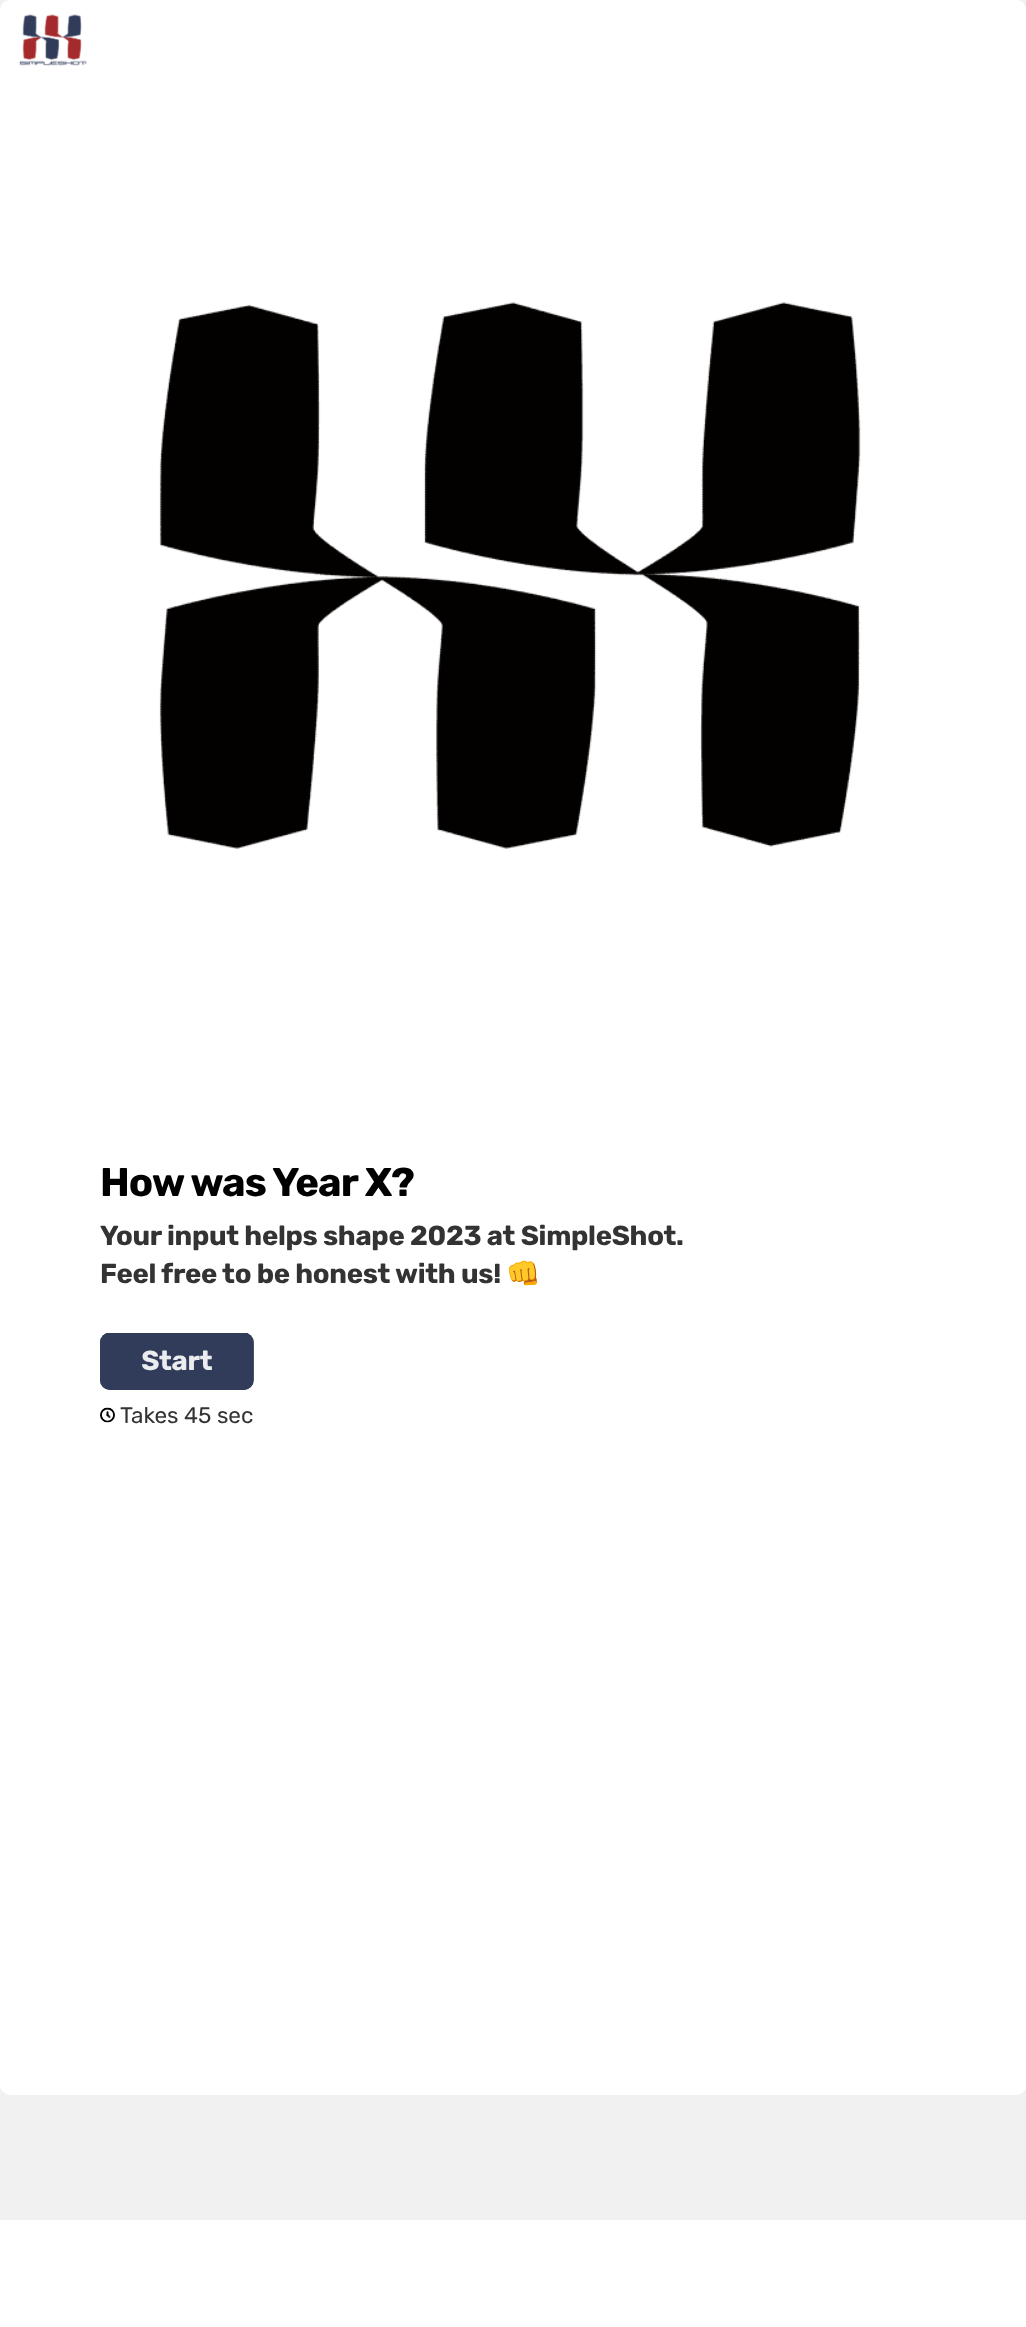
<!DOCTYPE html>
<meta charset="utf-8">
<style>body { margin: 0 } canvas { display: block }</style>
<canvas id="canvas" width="1026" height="2327"></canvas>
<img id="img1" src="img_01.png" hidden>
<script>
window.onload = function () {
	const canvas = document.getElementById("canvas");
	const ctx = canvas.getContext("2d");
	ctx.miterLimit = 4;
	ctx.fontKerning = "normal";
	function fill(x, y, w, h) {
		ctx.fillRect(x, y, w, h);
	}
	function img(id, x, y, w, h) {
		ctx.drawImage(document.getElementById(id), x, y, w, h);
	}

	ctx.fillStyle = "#FFFFFF";
	fill(0, 0, 1026, 2327);
	ctx.fillStyle = "#F1F1F1";
	fill(0, 0, 1026, 2220);
	img("img1", 0, 0, 1026, 2095);
};
</script>
